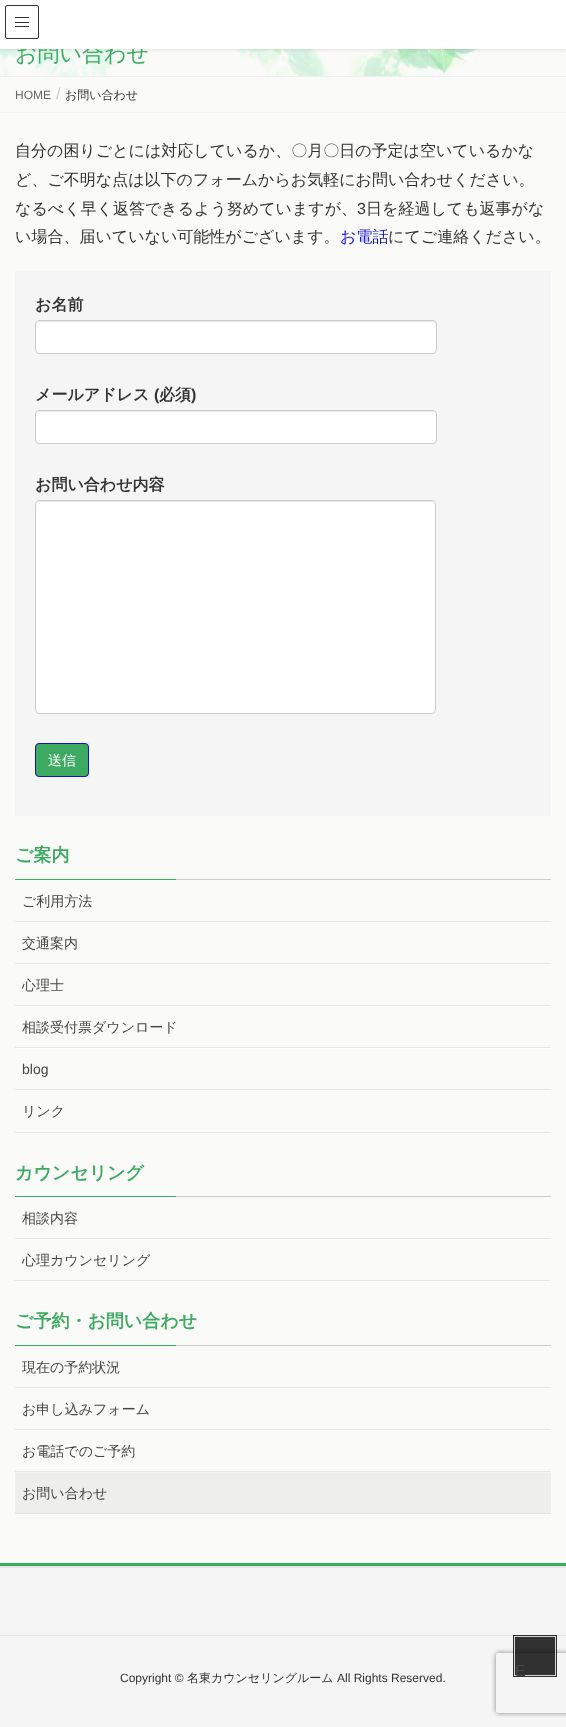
<!DOCTYPE html>
<meta charset="utf-8">
<style>body { margin: 0 } canvas { display: block }</style>
<canvas id="canvas" width="566" height="1727"></canvas>
<img id="img1" src="img_01.png" hidden>
<script>
window.onload = function () {
	const canvas = document.getElementById("canvas");
	const ctx = canvas.getContext("2d");
	ctx.miterLimit = 4;
	ctx.fontKerning = "normal";
	function txt(s, x, y) {
		ctx.fillText(s, x, y);
	}
	function fill(x, y, w, h) {
		ctx.fillRect(x, y, w, h);
	}
	function round(x, y, w, h, r) {
		ctx.beginPath();
		ctx.roundRect(x, y, w, h, r);
		ctx.fill();
	}
	function img(id, x, y, w, h) {
		ctx.drawImage(document.getElementById(id), x, y, w, h);
	}

	ctx.fillStyle = "#FAFAF8";
	fill(0, 0, 566, 1727);
	ctx.fillStyle = "#EEEEEC";
	fill(15, 1473, 536, 40);
	img("img1", 0, 49, 482, 27);
	ctx.fillStyle = "rgba(0, 0, 0, 0.1)";
	ctx.filter = "blur(1.5px)";
	ctx.beginPath();
	ctx.rect(0, 1, 566, 49);
	ctx.fill();
	ctx.filter = "none";
	ctx.fillStyle = "#EEEEEE";
	fill(0, 76, 566, 1);
	ctx.fillStyle = "#F3F3F3";
	fill(0, 112, 566, 1);
	ctx.fillStyle = "#F5F5F5";
	fill(15, 271, 536, 545);
	ctx.fillStyle = "#FFFFFF";
	round(35, 320, 402, 34, 4);
	ctx.fillStyle = "#ECECEC";
	ctx.beginPath();
	ctx.moveTo(39, 322);
	ctx.lineTo(433, 322);
	ctx.bezierCurveTo(435, 322, 436, 323, 436, 325);
	ctx.bezierCurveTo(436, 323, 435, 321, 433, 321);
	ctx.lineTo(39, 321);
	ctx.lineTo(37, 322);
	ctx.lineTo(36, 325);
	ctx.bezierCurveTo(36, 323, 37, 322, 39, 322);
	ctx.closePath();
	ctx.fill();
	ctx.beginPath();
	ctx.roundRect(35.5, 320.5, 401, 33, 3.5);
	ctx.strokeStyle = "#CCCCCC";
	ctx.stroke();
	ctx.fillStyle = "#FFFFFF";
	round(35, 410, 402, 34, 4);
	ctx.fillStyle = "#ECECEC";
	ctx.beginPath();
	ctx.moveTo(39, 412);
	ctx.lineTo(433, 412);
	ctx.bezierCurveTo(435, 412, 436, 413, 436, 415);
	ctx.bezierCurveTo(436, 413, 435, 411, 433, 411);
	ctx.lineTo(39, 411);
	ctx.lineTo(37, 412);
	ctx.lineTo(36, 415);
	ctx.bezierCurveTo(36, 413, 37, 412, 39, 412);
	ctx.closePath();
	ctx.fill();
	ctx.beginPath();
	ctx.roundRect(35.5, 410.5, 401, 33, 3.5);
	ctx.stroke();
	ctx.fillStyle = "#FFFFFF";
	round(35, 500, 401, 214, 4);
	ctx.fillStyle = "#ECECEC";
	ctx.beginPath();
	ctx.moveTo(39, 502);
	ctx.lineTo(432, 502);
	ctx.bezierCurveTo(434, 502, 435, 503, 435, 505);
	ctx.bezierCurveTo(435, 503, 434, 501, 432, 501);
	ctx.lineTo(39, 501);
	ctx.lineTo(37, 502);
	ctx.lineTo(36, 505);
	ctx.bezierCurveTo(36, 503, 37, 502, 39, 502);
	ctx.closePath();
	ctx.fill();
	ctx.beginPath();
	ctx.roundRect(35.5, 500.5, 400, 213, 3.5);
	ctx.stroke();
	ctx.fillStyle = "#3DAA62";
	ctx.beginPath();
	ctx.roundRect(35.5, 743.5, 53, 33, 3.5);
	ctx.fill();
	ctx.strokeStyle = "#1111CC";
	ctx.stroke();
	ctx.fillStyle = "#CCCCCC";
	fill(176, 879, 375, 1);
	ctx.fillStyle = "#3DAA62";
	fill(15, 879, 161, 1);
	ctx.fillStyle = "#FFFFFE";
	fill(15, 922, 536, 1);
	ctx.fillStyle = "#E5E5E5";
	fill(15, 921, 536, 1);
	ctx.fillStyle = "#FFFFFE";
	fill(15, 964, 536, 1);
	ctx.fillStyle = "#E5E5E5";
	fill(15, 963, 536, 1);
	ctx.fillStyle = "#FFFFFE";
	fill(15, 1006, 536, 1);
	ctx.fillStyle = "#E5E5E5";
	fill(15, 1005, 536, 1);
	ctx.fillStyle = "#FFFFFE";
	fill(15, 1048, 536, 1);
	ctx.fillStyle = "#E5E5E5";
	fill(15, 1047, 536, 1);
	ctx.fillStyle = "#FFFFFE";
	fill(15, 1090, 536, 1);
	ctx.fillStyle = "#E5E5E5";
	fill(15, 1089, 536, 1);
	ctx.fillStyle = "#FFFFFE";
	fill(15, 1133, 536, 1);
	ctx.fillStyle = "#E5E5E5";
	fill(15, 1132, 536, 1);
	ctx.fillStyle = "#CCCCCC";
	fill(176, 1196, 375, 1);
	ctx.fillStyle = "#3DAA62";
	fill(15, 1196, 161, 1);
	ctx.fillStyle = "#FFFFFE";
	fill(15, 1239, 536, 1);
	ctx.fillStyle = "#E5E5E5";
	fill(15, 1238, 536, 1);
	ctx.fillStyle = "#FFFFFE";
	fill(15, 1281, 536, 1);
	ctx.fillStyle = "#E5E5E5";
	fill(15, 1280, 536, 1);
	ctx.fillStyle = "#CCCCCC";
	fill(176, 1345, 375, 1);
	ctx.fillStyle = "#3DAA62";
	fill(15, 1345, 161, 1);
	ctx.fillStyle = "#FFFFFE";
	fill(15, 1388, 536, 1);
	ctx.fillStyle = "#E5E5E5";
	fill(15, 1387, 536, 1);
	ctx.fillStyle = "#FFFFFE";
	fill(15, 1430, 536, 1);
	ctx.fillStyle = "#E5E5E5";
	fill(15, 1429, 536, 1);
	ctx.fillStyle = "#F2F2F1";
	fill(15, 1472, 536, 1);
	ctx.fillStyle = "#E5E5E5";
	fill(15, 1471, 536, 1);
	ctx.fillStyle = "#FFFFFE";
	fill(15, 1514, 536, 1);
	ctx.fillStyle = "#E5E5E5";
	fill(15, 1513, 536, 1);
	ctx.fillStyle = "#F5F5F5";
	fill(0, 1568, 566, 159);
	ctx.save();
	ctx.beginPath();
	ctx.moveTo(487, 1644);
	ctx.lineTo(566, 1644);
	ctx.lineTo(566, 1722);
	ctx.lineTo(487, 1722);
	ctx.closePath();
	ctx.moveTo(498, 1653);
	ctx.lineTo(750, 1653);
	ctx.bezierCurveTo(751, 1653, 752, 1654, 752, 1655);
	ctx.lineTo(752, 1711);
	ctx.bezierCurveTo(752, 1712, 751, 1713, 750, 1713);
	ctx.lineTo(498, 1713);
	ctx.bezierCurveTo(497, 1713, 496, 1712, 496, 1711);
	ctx.lineTo(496, 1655);
	ctx.bezierCurveTo(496, 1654, 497, 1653, 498, 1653);
	ctx.closePath();
	ctx.clip("evenodd");
	ctx.fillStyle = "#808080";
	ctx.filter = "blur(2.5px)";
	ctx.beginPath();
	ctx.roundRect(496, 1653, 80, 60, 2);
	ctx.fill();
	ctx.filter = "none";
	ctx.restore();
	ctx.fillStyle = "#E5E5E5";
	fill(0, 1635, 566, 1);
	ctx.strokeStyle = "rgba(0, 0, 0, 0.8)";
	ctx.lineWidth = 2;
	ctx.strokeRect(514, 1636, 42, 40);
	ctx.strokeStyle = "rgba(255, 255, 255, 0.8)";
	ctx.lineWidth = 1;
	ctx.strokeRect(514.5, 1636.5, 41, 39);
	ctx.fillStyle = "rgba(0, 0, 0, 0.8)";
	fill(515, 1637, 40, 38);
	ctx.fillStyle = "#3DAA62";
	fill(0, 1563, 566, 3);
	ctx.fillStyle = "#E5E5E5";
	fill(0, 1566, 566, 2);
	ctx.font = "500 22px WenQuanYi Zen Hei";
	ctx.fillStyle = "#3DAA62";
	txt("お問い合わせ", 15, 61);
	ctx.fillStyle = "#FFFFFF";
	fill(0, 0, 566, 49);
	ctx.fillStyle = "#333333";
	fill(15, 26, 14, 1);
	fill(15, 22, 14, 1);
	fill(15, 17, 14, 1);
	ctx.beginPath();
	ctx.roundRect(5.5, 5.5, 33, 33, 1.5);
	ctx.strokeStyle = "#333333";
	ctx.stroke();
	ctx.font = "12px Liberation Sans";
	ctx.fillStyle = "#666666";
	txt("HOME", 15, 99);
	ctx.font = "16px Liberation Sans";
	ctx.fillStyle = "#CCCCCC";
	txt("/", 56, 99);
	ctx.font = "500 12px WenQuanYi Zen Hei";
	ctx.fillStyle = "#333333";
	txt("お問い合わせ", 65, 99);
	ctx.font = "500 16px WenQuanYi Zen Hei";
	txt("自分の困りごとには対応しているか、〇月〇日の予定は空いているかな", 15, 156);
	txt("ど、ご不明な点は以下のフォームからお気軽にお問い合わせください。", 15, 185);
	txt("なるべく早く返答できるよう努めていますが、", 15, 214);
	ctx.font = "16px Liberation Sans";
	txt("3", 357, 214);
	ctx.font = "500 16px WenQuanYi Zen Hei";
	txt("日を経過しても返事がな", 366, 214);
	txt("い場合、届いていない可能性がございます。", 15, 242);
	ctx.fillStyle = "#1111CC";
	txt("お電話", 340, 242);
	ctx.fillStyle = "#333333";
	txt("にてご連絡ください。", 388, 242);
	ctx.font = "bold 16px WenQuanYi Zen Hei";
	txt("お名前", 35, 310);
	txt("メールアドレス", 35, 400);
	ctx.font = "bold 16px Liberation Sans";
	txt("(", 154, 400);
	ctx.font = "bold 16px WenQuanYi Zen Hei";
	txt("必須", 159, 400);
	ctx.font = "bold 16px Liberation Sans";
	txt(")", 191, 400);
	ctx.font = "bold 16px WenQuanYi Zen Hei";
	txt("お問い合わせ内容", 35, 490);
	ctx.font = "500 14px WenQuanYi Zen Hei";
	ctx.fillStyle = "#FFFFFF";
	txt("送信", 48, 765);
	ctx.font = "bold 18px WenQuanYi Zen Hei";
	ctx.fillStyle = "#3DAA62";
	txt("ご案内", 15, 861);
	ctx.font = "500 14px WenQuanYi Zen Hei";
	ctx.fillStyle = "#464646";
	txt("ご利用方法", 22, 906);
	txt("交通案内", 22, 948);
	txt("心理士", 22, 990);
	txt("相談受付票ダウンロード", 22, 1032);
	ctx.font = "14px Liberation Sans";
	txt("blog", 22, 1074);
	ctx.font = "500 14px WenQuanYi Zen Hei";
	txt("リンク", 22, 1116);
	ctx.font = "bold 18px WenQuanYi Zen Hei";
	ctx.fillStyle = "#3DAA62";
	txt("カウンセリング", 15, 1179);
	ctx.font = "500 14px WenQuanYi Zen Hei";
	ctx.fillStyle = "#464646";
	txt("相談内容", 22, 1223);
	txt("心理カウンセリング", 22, 1265);
	ctx.font = "bold 18px WenQuanYi Zen Hei";
	ctx.fillStyle = "#3DAA62";
	txt("ご予約・お問い合わせ", 15, 1327);
	ctx.font = "500 14px WenQuanYi Zen Hei";
	ctx.fillStyle = "#464646";
	txt("現在の予約状況", 22, 1372);
	txt("お申し込みフォーム", 22, 1414);
	txt("お電話でのご予約", 22, 1456);
	txt("お問い合わせ", 22, 1498);
	ctx.font = "16px Liberation Sans";
	txt("E", 515, 1676);
	ctx.font = "12px Liberation Sans";
	ctx.fillStyle = "#333333";
	txt("Copyright ©", 120, 1682);
	ctx.font = "500 12px WenQuanYi Zen Hei";
	txt("名東カウンセリングルーム", 187, 1682);
	ctx.font = "12px Liberation Sans";
	txt("All Rights Reserved.", 337, 1682);
};
</script>
